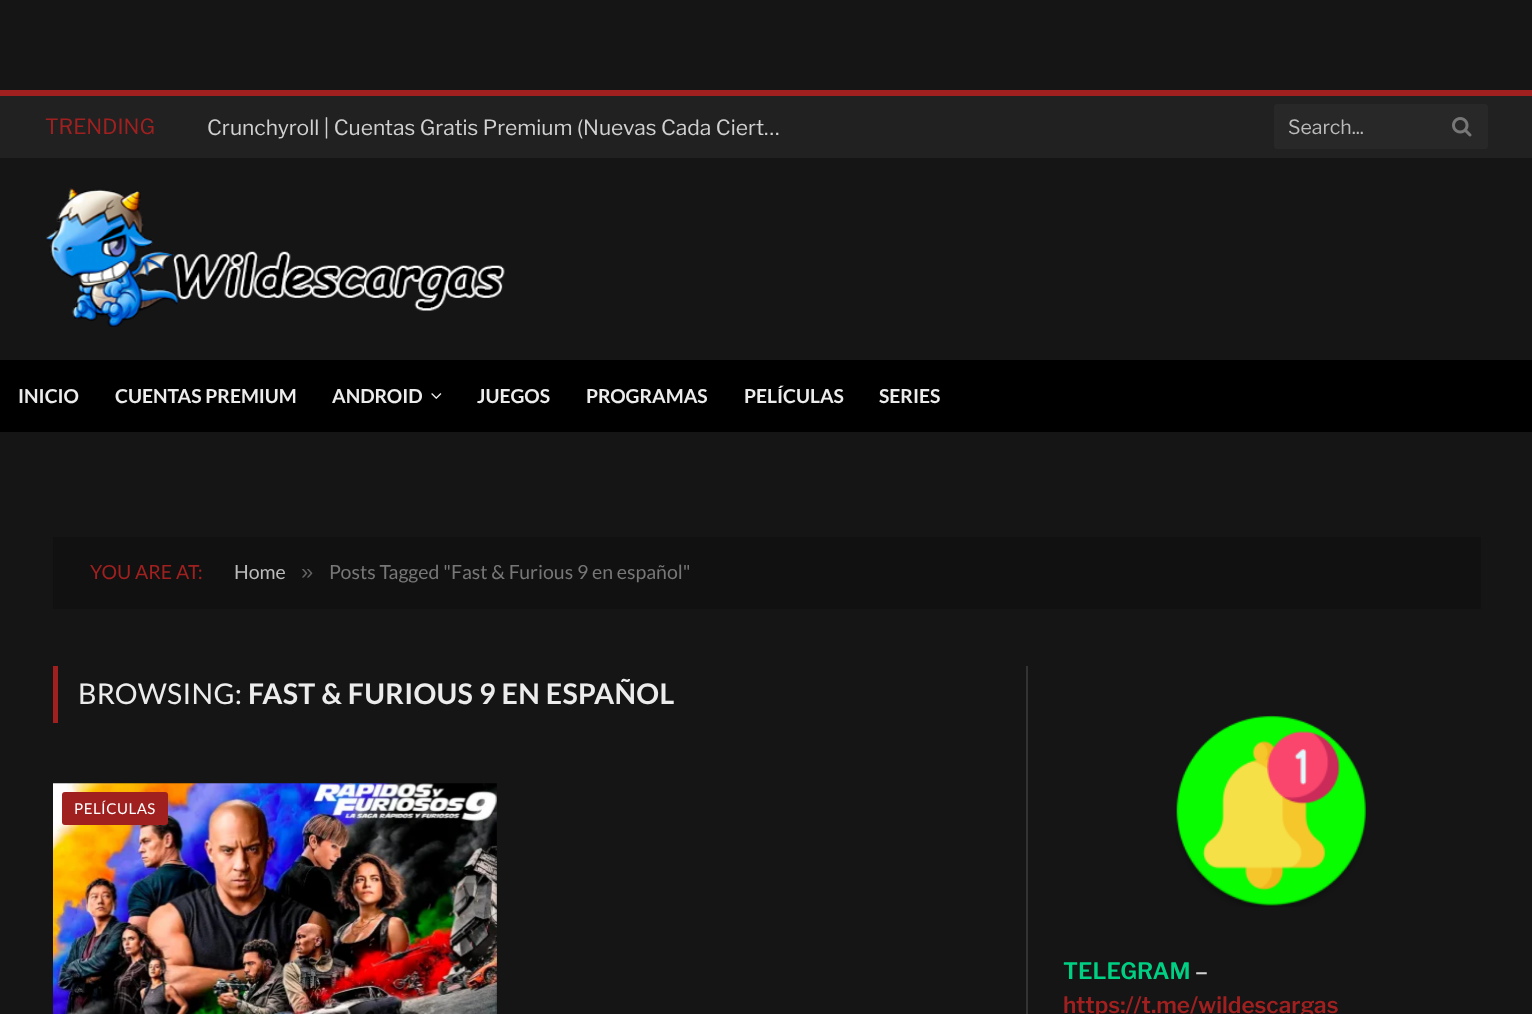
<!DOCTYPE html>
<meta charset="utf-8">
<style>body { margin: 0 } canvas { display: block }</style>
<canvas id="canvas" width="1532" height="1014"></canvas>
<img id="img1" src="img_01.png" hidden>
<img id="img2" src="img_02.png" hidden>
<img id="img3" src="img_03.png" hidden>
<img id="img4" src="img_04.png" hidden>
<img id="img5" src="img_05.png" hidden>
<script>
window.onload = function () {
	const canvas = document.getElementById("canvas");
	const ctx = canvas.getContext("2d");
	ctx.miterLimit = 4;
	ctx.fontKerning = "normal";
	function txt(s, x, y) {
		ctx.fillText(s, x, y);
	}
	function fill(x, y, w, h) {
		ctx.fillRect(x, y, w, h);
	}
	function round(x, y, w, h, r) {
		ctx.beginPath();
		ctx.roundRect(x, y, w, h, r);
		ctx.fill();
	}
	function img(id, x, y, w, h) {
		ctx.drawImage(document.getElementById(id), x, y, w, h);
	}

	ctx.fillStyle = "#151516";
	fill(0, 0, 1532, 1014);
	ctx.fillStyle = "#212122";
	fill(0, 96, 1532, 62);
	ctx.fillStyle = "#A02020";
	fill(0, 90, 1532, 6);
	ctx.fillStyle = "#282829";
	round(1274, 104, 214, 45, 3);
	img("img1", 1452, 117, 20, 20);
	img("img2", 46, 187, 459, 140);
	ctx.fillStyle = "#000000";
	fill(0, 360, 1532, 72);
	img("img3", 431, 393, 11, 6);
	ctx.fillStyle = "#111111";
	fill(53, 537, 1428, 72);
	ctx.fillStyle = "#A02020";
	fill(53, 666, 5, 57);
	img("img4", 53, 783, 444, 231);
	round(62, 792, 106, 33, 3);
	ctx.fillStyle = "#333334";
	fill(1026, 666, 2, 348);
	img("img5", 1176, 715, 190, 192);
	ctx.font = "21px Libre Franklin";
	ctx.fillStyle = "#A02020";
	txt("TRENDING", 45, 134);
	ctx.fillStyle = "#D1D1D1";
	txt("Crunchyroll | Cuentas Gratis Premium (Nuevas Cada Ciert…", 207, 135);
	ctx.font = "19.5px Libre Franklin";
	ctx.fillStyle = "#BBBBBB";
	txt("Search...", 1288, 134);
	ctx.font = "bold 19.25px Lato";
	ctx.fillStyle = "#ECECEC";
	txt("INICIO", 18, 403);
	txt("CUENTAS PREMIUM", 115, 403);
	txt("ANDROID", 332, 403);
	txt("JUEGOS", 477, 403);
	txt("PROGRAMAS", 586, 403);
	txt("PELÍCULAS", 744, 403);
	txt("SERIES", 879, 403);
	ctx.font = "19.5px Lato";
	ctx.fillStyle = "#A02020";
	txt("YOU ARE AT:", 90, 579);
	ctx.fillStyle = "#BBBBBB";
	txt("Home", 234, 579);
	ctx.font = "22px Liberation Sans";
	ctx.fillStyle = "#636363";
	txt("»", 301, 579);
	ctx.font = "19.5px Lato";
	ctx.fillStyle = "#777777";
	txt("Posts Tagged \"Fast & Furious 9 en español\"", 329, 579);
	ctx.letterSpacing = "0.3px";
	ctx.font = "28.5px Lato";
	ctx.fillStyle = "#ECECEC";
	txt("BROWSING:", 78, 704);
	ctx.font = "bold 28.5px Lato";
	txt("FAST & FURIOUS 9 EN ESPAÑOL", 248, 704);
	ctx.letterSpacing = "0.5px";
	ctx.font = "15px Lato";
	ctx.fillStyle = "#FFFFFF";
	txt("PELÍCULAS", 74, 814);
	ctx.letterSpacing = "0px";
	ctx.font = "600 22.5px Libre Franklin";
	ctx.fillStyle = "#00D084";
	txt("TELEGRAM", 1063, 979);
	ctx.fillStyle = "#D1D1D1";
	txt("–", 1195, 979);
	ctx.fillStyle = "#A02020";
	txt("https://t.me/wildescargas", 1063, 1013);
};
</script>
